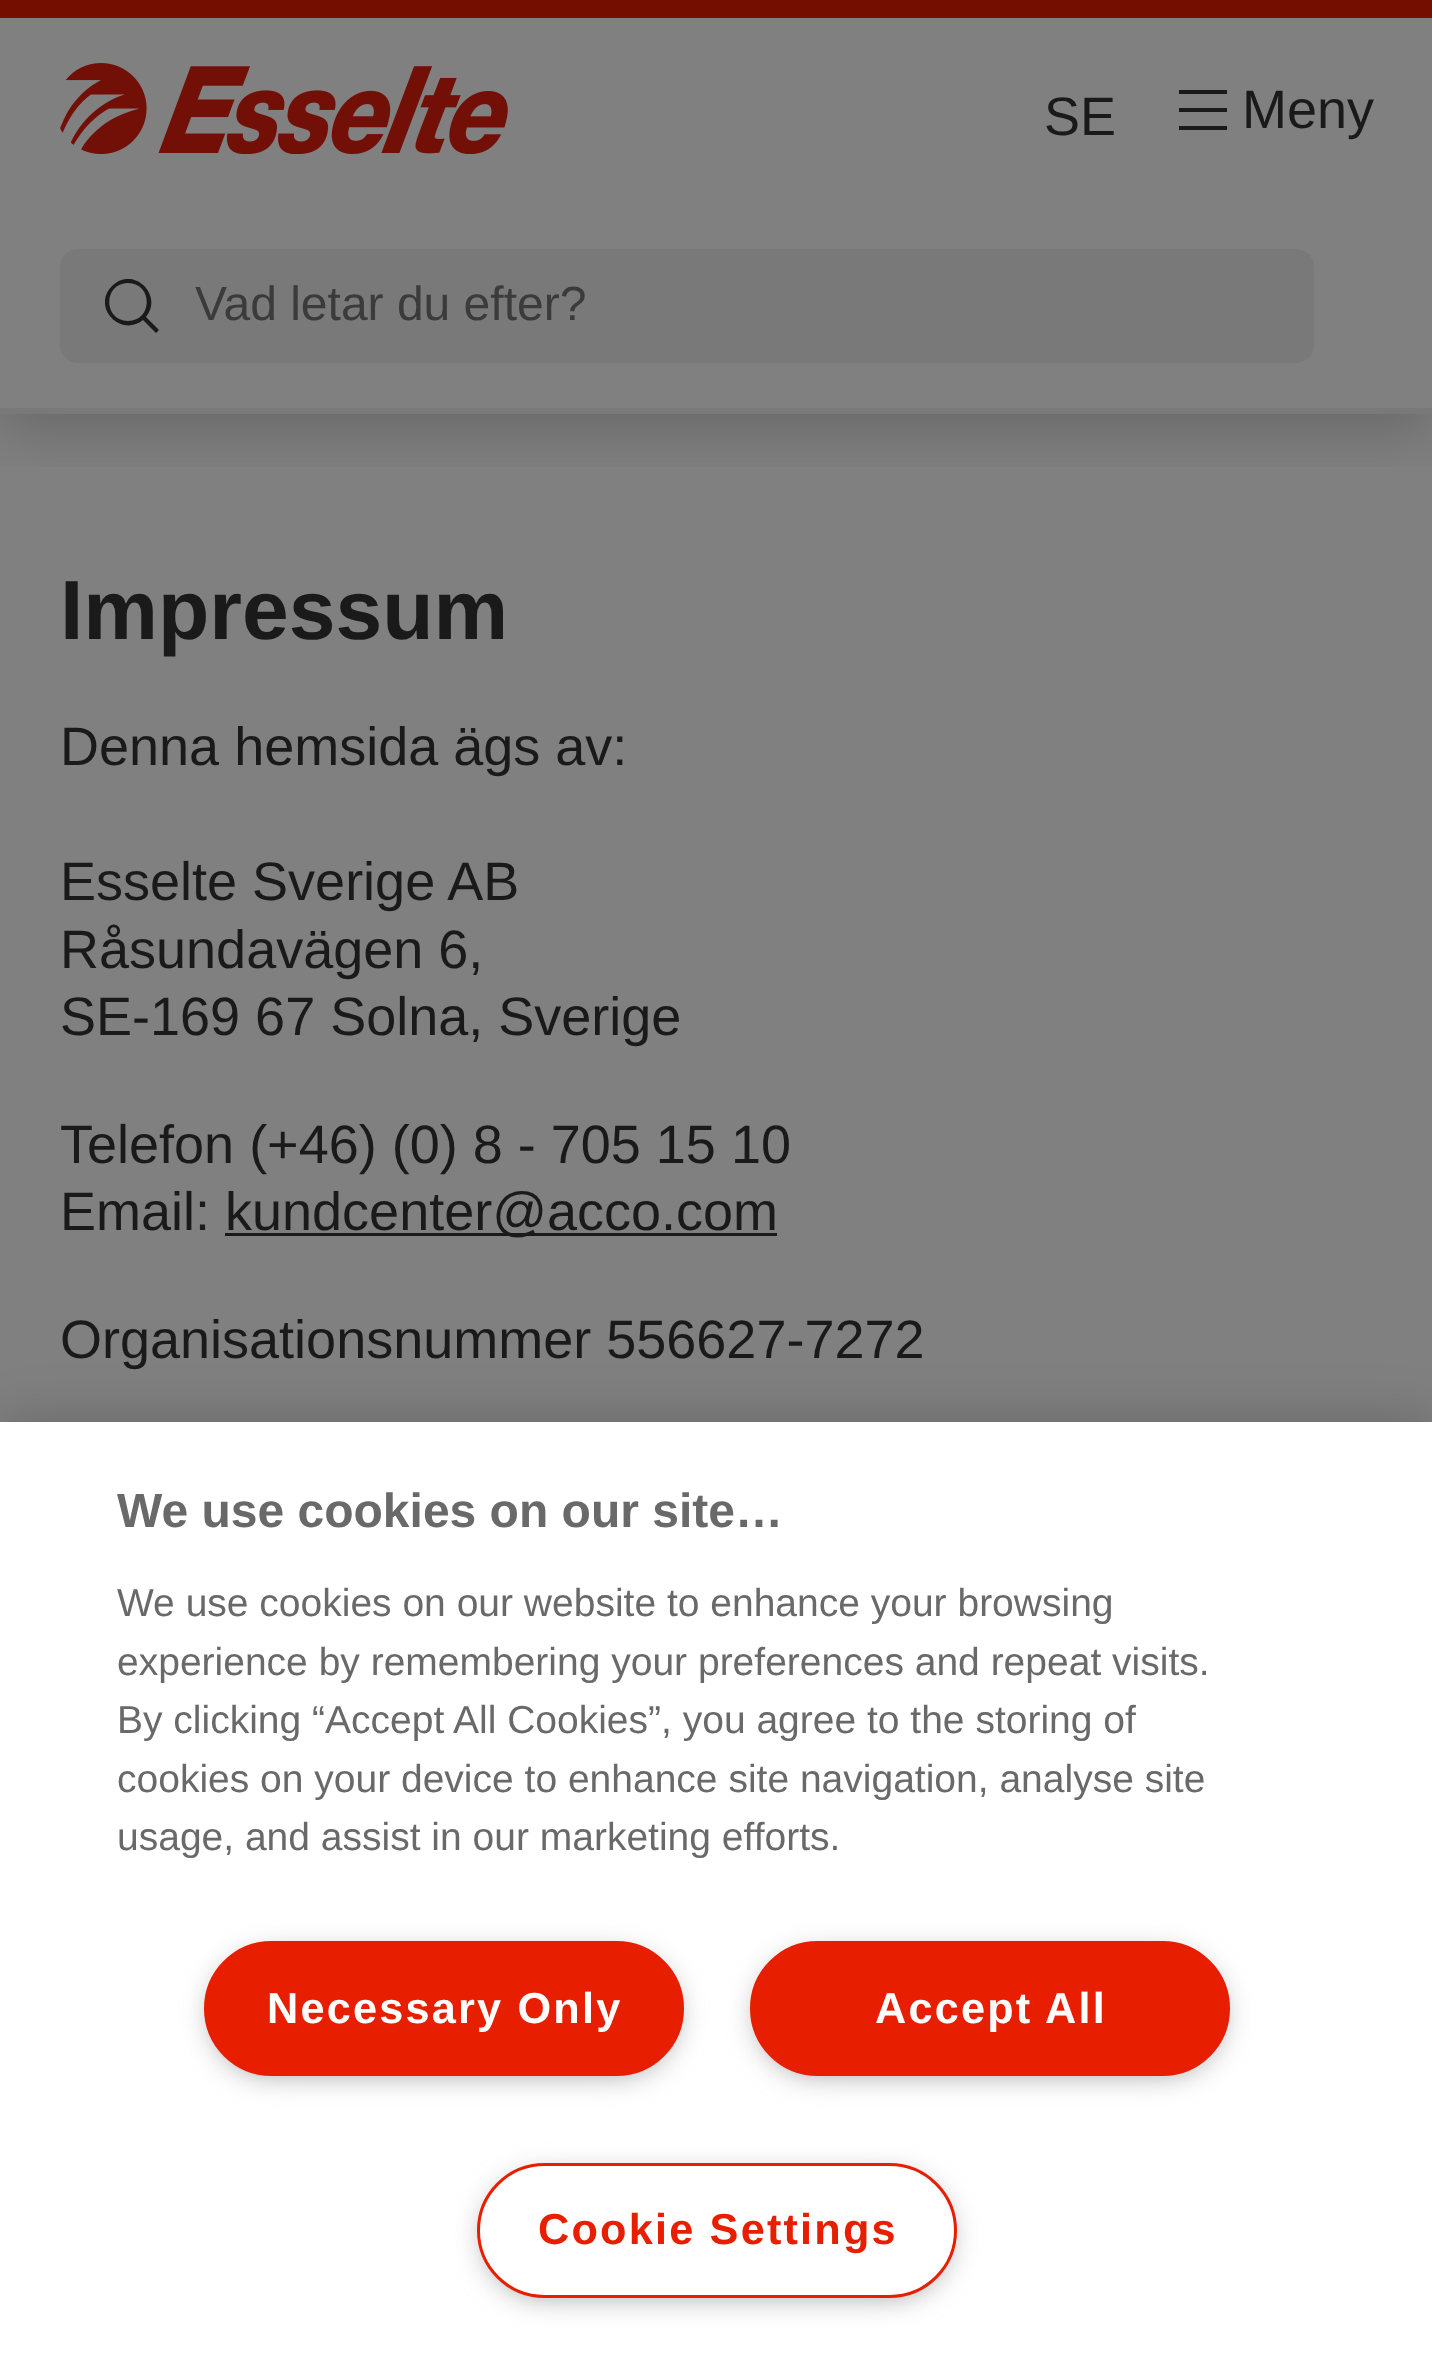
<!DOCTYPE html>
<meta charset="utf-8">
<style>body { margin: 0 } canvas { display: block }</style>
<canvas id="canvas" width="1432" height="2376"></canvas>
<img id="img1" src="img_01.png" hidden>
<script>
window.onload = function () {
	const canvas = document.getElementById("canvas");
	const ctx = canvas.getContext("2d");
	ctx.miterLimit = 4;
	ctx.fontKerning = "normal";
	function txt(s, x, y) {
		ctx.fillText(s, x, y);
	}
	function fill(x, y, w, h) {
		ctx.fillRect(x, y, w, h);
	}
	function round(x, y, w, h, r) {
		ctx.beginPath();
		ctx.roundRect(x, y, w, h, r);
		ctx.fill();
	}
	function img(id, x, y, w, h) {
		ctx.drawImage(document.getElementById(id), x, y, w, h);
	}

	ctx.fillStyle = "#808080";
	fill(0, 0, 1432, 2376);
	ctx.save();
	ctx.beginPath();
	ctx.rect(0, 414, 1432, 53);
	ctx.clip();
	ctx.fillStyle = "rgba(0, 0, 0, 0.2)";
	ctx.filter = "blur(30px)";
	ctx.beginPath();
	ctx.rect(0, 15, 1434, 414);
	ctx.fill();
	ctx.filter = "none";
	ctx.restore();
	ctx.fillStyle = "#740F00";
	fill(0, 0, 1432, 18);
	ctx.fillStyle = "#797979";
	fill(0, 408, 1432, 6);
	img("img1", 60, 63, 448, 91);
	ctx.fillStyle = "#1A1A1A";
	fill(1179, 108, 48, 4);
	fill(1179, 90, 48, 4);
	fill(1179, 126, 48, 4);
	ctx.fillStyle = "#797979";
	round(60, 249, 1254, 114, 18);
	ctx.save();
	ctx.beginPath();
	ctx.rect(105, 279, 54, 54);
	ctx.clip();
	ctx.fillStyle = "#1A1A1A";
	ctx.beginPath();
	ctx.moveTo(143, 320);
	ctx.lineTo(156, 333);
	ctx.lineTo(159, 330);
	ctx.lineTo(146, 317);
	ctx.bezierCurveTo(164, 295, 133, 265, 112, 286);
	ctx.bezierCurveTo(91, 307, 121, 338, 143, 320);
	ctx.closePath();
	ctx.moveTo(128, 283);
	ctx.bezierCurveTo(153, 283, 153, 321, 128, 321);
	ctx.bezierCurveTo(103, 321, 103, 283, 128, 283);
	ctx.closePath();
	ctx.fill("evenodd");
	ctx.restore();
	ctx.fillStyle = "#1A1A1A";
	fill(225, 1233, 552, 3);
	ctx.fillStyle = "rgba(0, 0, 0, 0.2)";
	ctx.filter = "blur(27px)";
	ctx.beginPath();
	ctx.rect(0, 1422, 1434, 954);
	ctx.fill();
	ctx.filter = "none";
	ctx.fillStyle = "#FFFFFF";
	fill(0, 1422, 1432, 954);
	ctx.fillStyle = "#999999";
	ctx.filter = "blur(15px)";
	ctx.beginPath();
	ctx.roundRect(213, 1956, 462, 117, 58.5);
	ctx.fill();
	ctx.filter = "none";
	ctx.fillStyle = "#E71E00";
	ctx.beginPath();
	ctx.roundRect(205.5, 1942.5, 477, 132, 66);
	ctx.fill();
	ctx.strokeStyle = "#E71E00";
	ctx.lineWidth = 3;
	ctx.stroke();
	ctx.fillStyle = "#999999";
	ctx.filter = "blur(15px)";
	ctx.beginPath();
	ctx.roundRect(759, 1956, 462, 117, 58.5);
	ctx.fill();
	ctx.filter = "none";
	ctx.fillStyle = "#E71E00";
	ctx.beginPath();
	ctx.roundRect(751.5, 1942.5, 477, 132, 66);
	ctx.fill();
	ctx.stroke();
	ctx.fillStyle = "#999999";
	ctx.filter = "blur(15px)";
	ctx.beginPath();
	ctx.roundRect(486, 2178, 462, 117, 58.5);
	ctx.fill();
	ctx.filter = "none";
	ctx.fillStyle = "#FFFFFF";
	ctx.beginPath();
	ctx.roundRect(478.5, 2164.5, 477, 132, 66);
	ctx.fill();
	ctx.stroke();
	ctx.font = "54px Liberation Sans";
	ctx.fillStyle = "#1A1A1A";
	txt("Meny", 1242, 128);
	txt("SE", 1044, 135);
	ctx.font = "48px Liberation Sans";
	ctx.fillStyle = "#3B3B3B";
	txt("Vad letar du efter?", 195, 320);
	ctx.font = "bold 84px Liberation Sans";
	ctx.fillStyle = "#1A1A1A";
	txt("Impressum", 60, 639);
	ctx.font = "54px Liberation Sans";
	txt("Denna hemsida ägs av:", 60, 765);
	txt("Esselte Sverige AB", 60, 900);
	txt("Råsundavägen 6,", 60, 968);
	txt("SE-169 67 Solna, Sverige", 60, 1035);
	txt("Telefon (+46) (0) 8 - 705 15 10", 60, 1163);
	txt("Email:", 60, 1230);
	txt("kundcenter@acco.com", 225, 1230);
	txt("Organisationsnummer 556627-7272", 60, 1358);
	ctx.font = "bold 48px Liberation Sans";
	ctx.fillStyle = "#696969";
	txt("We use cookies on our site…", 117, 1527);
	ctx.font = "39px Liberation Sans";
	txt("We use cookies on our website to enhance your browsing", 117, 1616);
	txt("experience by remembering your preferences and repeat visits.", 117, 1675);
	txt("By clicking “Accept All Cookies”, you agree to the storing of", 117, 1733);
	txt("cookies on your device to enhance site navigation, analyse site", 117, 1792);
	txt("usage, and assist in our marketing efforts.", 117, 1850);
	ctx.letterSpacing = "2.2px";
	ctx.font = "bold 43.25px Liberation Sans";
	ctx.fillStyle = "#FFFFFF";
	txt("Necessary Only", 267, 2023);
	txt("Accept All", 875, 2023);
	ctx.fillStyle = "#E71E00";
	txt("Cookie Settings", 538, 2244);
};
</script>
